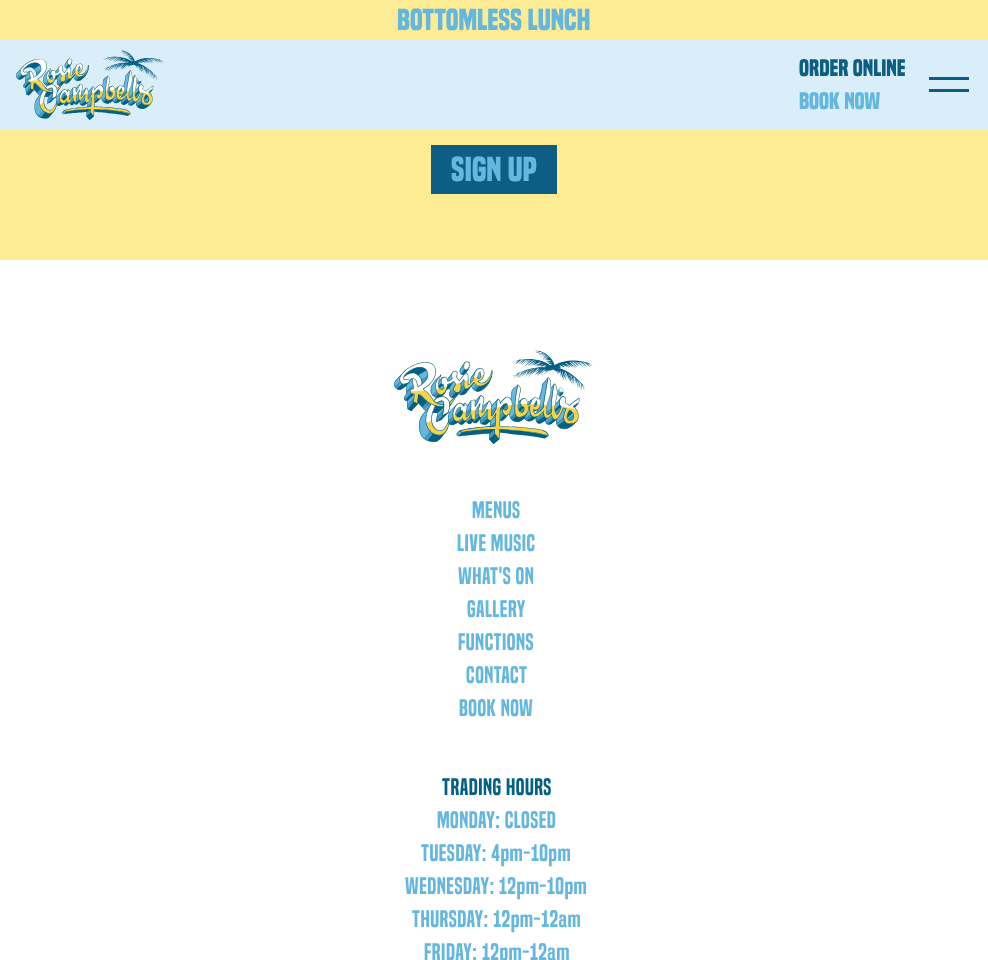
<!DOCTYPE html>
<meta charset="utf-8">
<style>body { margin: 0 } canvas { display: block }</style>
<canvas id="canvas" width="988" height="960"></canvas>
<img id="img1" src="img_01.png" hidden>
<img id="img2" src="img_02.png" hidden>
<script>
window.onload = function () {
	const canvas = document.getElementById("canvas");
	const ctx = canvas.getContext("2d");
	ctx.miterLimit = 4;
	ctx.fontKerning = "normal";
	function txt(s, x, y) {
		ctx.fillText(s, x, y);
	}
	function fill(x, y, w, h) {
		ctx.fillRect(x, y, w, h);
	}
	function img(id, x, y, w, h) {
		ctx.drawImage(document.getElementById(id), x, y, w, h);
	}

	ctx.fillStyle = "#FFFFFF";
	fill(0, 0, 988, 960);
	ctx.fillStyle = "#DAEEF9";
	fill(0, 40, 988, 90);
	ctx.fillStyle = "#FDEC94";
	fill(0, 0, 988, 40);
	img("img1", 16, 50, 148, 70);
	ctx.fillStyle = "#036185";
	fill(929, 77, 40, 3);
	fill(929, 89, 40, 3);
	ctx.fillStyle = "#FDEC94";
	fill(0, 130, 988, 130);
	ctx.fillStyle = "#0C5E83";
	fill(431, 145, 126, 49);
	img("img2", 394, 350, 199, 94);
	ctx.font = "bold 28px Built";
	ctx.fillStyle = "#65B7DF";
	txt("BOTTOMLESS LUNCH", 397, 30);
	ctx.font = "bold 22px Built";
	ctx.fillStyle = "#0C5E83";
	txt("ORDER ONLINE", 799, 76);
	ctx.fillStyle = "#65B7DF";
	txt("BOOK NOW", 799, 109);
	ctx.font = "bold 32px Built";
	txt("SIGN UP", 451, 181);
	ctx.letterSpacing = "0.5px";
	ctx.font = "22px Built";
	txt("MENUS", 472, 518);
	txt("LIVE MUSIC", 457, 551);
	txt("WHAT'S ON", 458, 584);
	txt("GALLERY", 467, 617);
	txt("FUNCTIONS", 458, 650);
	txt("CONTACT", 466, 683);
	txt("BOOK NOW", 459, 716);
	ctx.fillStyle = "#036185";
	txt("TRADING HOURS", 442, 795);
	ctx.fillStyle = "#65B7DF";
	txt("MONDAY: CLOSED", 437, 828);
	txt("TUESDAY: 4pm-10pm", 421, 861);
	txt("WEDNESDAY: 12pm-10pm", 405, 894);
	txt("THURSDAY: 12pm-12am", 412, 927);
	txt("FRIDAY: 12pm-12am", 424, 960);
};
</script>
